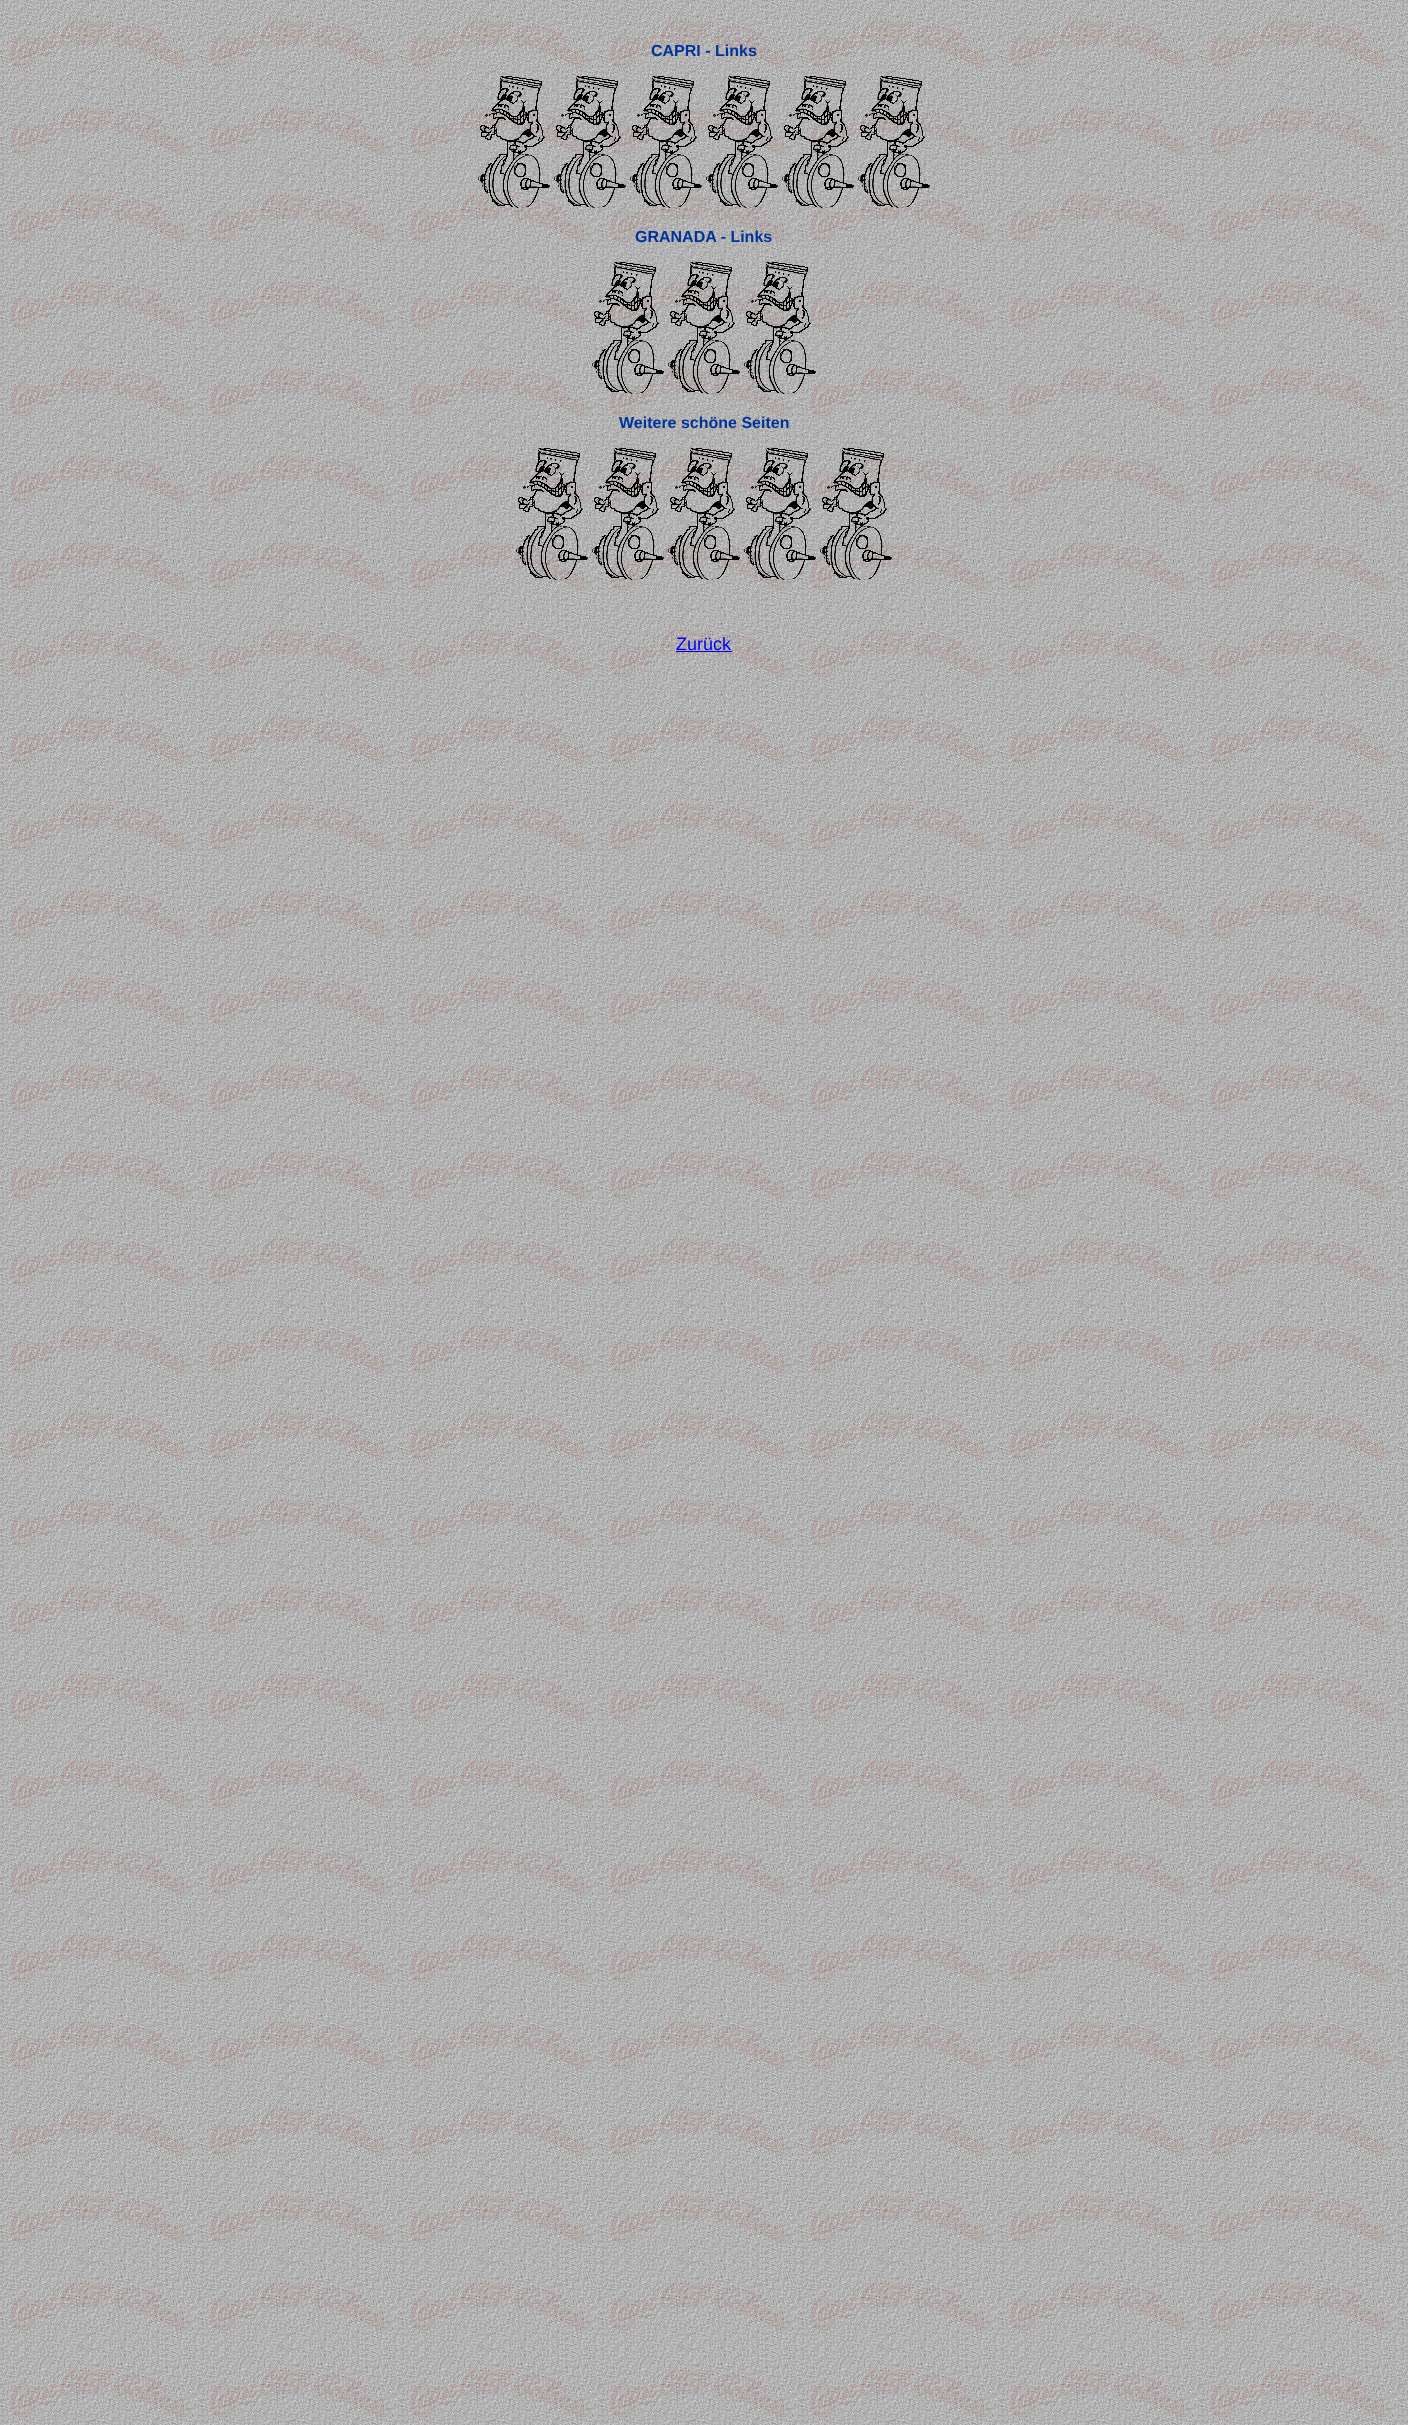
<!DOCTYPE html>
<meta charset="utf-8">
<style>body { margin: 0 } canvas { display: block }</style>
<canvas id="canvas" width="1408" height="2425"></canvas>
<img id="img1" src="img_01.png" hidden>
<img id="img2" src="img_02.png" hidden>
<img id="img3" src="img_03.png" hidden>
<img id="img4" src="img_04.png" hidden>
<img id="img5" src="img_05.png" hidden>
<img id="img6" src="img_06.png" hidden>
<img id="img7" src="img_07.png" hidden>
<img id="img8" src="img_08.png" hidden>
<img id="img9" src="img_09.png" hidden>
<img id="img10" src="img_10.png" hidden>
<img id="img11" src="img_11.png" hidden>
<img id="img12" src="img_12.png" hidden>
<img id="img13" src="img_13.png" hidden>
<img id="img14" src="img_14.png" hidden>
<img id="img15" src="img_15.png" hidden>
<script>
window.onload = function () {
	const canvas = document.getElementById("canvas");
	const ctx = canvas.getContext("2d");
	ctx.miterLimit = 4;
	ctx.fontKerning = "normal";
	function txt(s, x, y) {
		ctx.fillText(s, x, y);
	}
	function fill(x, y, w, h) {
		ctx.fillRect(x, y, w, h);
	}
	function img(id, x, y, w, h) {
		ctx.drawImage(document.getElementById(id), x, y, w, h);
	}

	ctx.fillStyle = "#FFFFFF";
	fill(0, 0, 1408, 2425);
	img("img1", 0, 0, 1408, 2425);
	img("img2", 478, 76, 72, 132);
	img("img3", 554, 76, 72, 132);
	img("img4", 630, 76, 72, 132);
	img("img5", 706, 76, 72, 132);
	img("img6", 782, 76, 72, 132);
	img("img7", 858, 76, 72, 132);
	img("img8", 592, 262, 72, 132);
	img("img9", 668, 262, 72, 132);
	img("img10", 744, 262, 72, 132);
	img("img11", 516, 448, 72, 132);
	img("img12", 592, 448, 72, 132);
	img("img13", 668, 448, 72, 132);
	img("img14", 744, 448, 72, 132);
	img("img15", 820, 448, 72, 132);
	ctx.fillStyle = "#0000FF";
	fill(676, 651, 56, 1);
	ctx.font = "bold 16px Liberation Sans";
	ctx.fillStyle = "#003399";
	txt("CAPRI - Links", 651, 56);
	txt("GRANADA - Links", 635, 242);
	txt("Weitere schöne Seiten", 619, 428);
	ctx.font = "18px Liberation Sans";
	ctx.fillStyle = "#0000FF";
	txt("Zurück", 676, 650);
};
</script>
